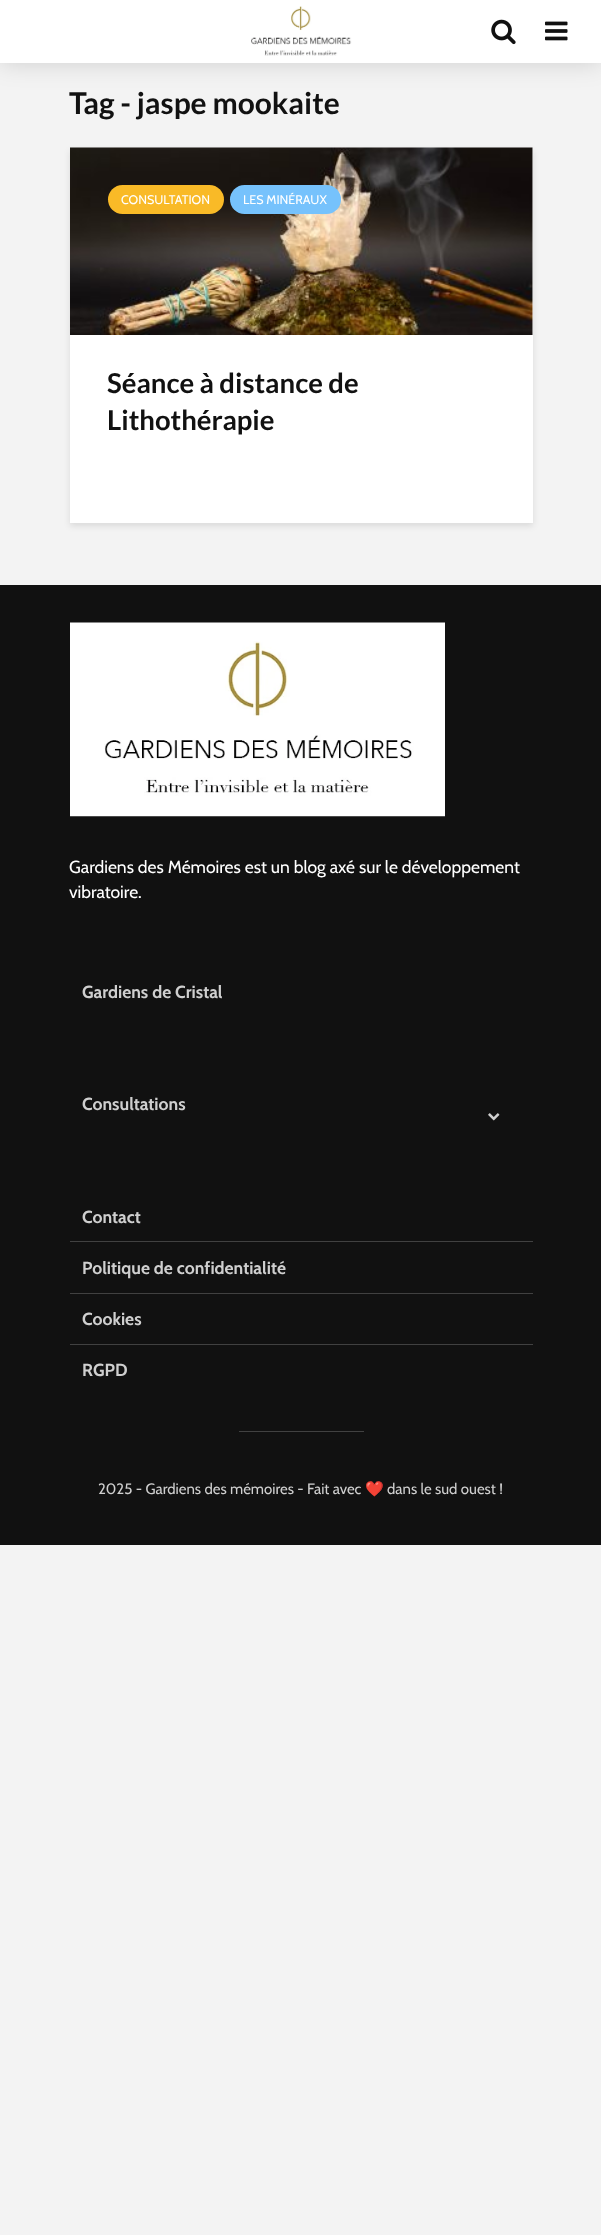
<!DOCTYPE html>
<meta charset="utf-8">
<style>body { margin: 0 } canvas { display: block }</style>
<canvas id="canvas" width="601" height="2235"></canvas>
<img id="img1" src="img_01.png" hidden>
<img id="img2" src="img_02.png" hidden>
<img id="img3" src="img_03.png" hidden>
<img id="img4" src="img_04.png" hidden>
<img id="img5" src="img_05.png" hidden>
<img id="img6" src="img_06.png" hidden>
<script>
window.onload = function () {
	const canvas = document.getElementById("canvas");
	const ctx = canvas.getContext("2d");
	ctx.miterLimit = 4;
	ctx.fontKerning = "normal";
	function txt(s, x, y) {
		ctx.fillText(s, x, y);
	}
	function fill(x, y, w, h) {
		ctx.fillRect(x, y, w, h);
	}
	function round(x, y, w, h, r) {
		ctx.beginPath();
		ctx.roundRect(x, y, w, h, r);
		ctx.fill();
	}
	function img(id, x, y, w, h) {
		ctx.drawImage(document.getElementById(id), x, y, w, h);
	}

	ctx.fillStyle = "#F3F3F3";
	fill(0, 0, 601, 2235);
	ctx.fillStyle = "rgba(0, 0, 0, 0.15)";
	ctx.filter = "blur(12.5px)";
	ctx.beginPath();
	ctx.rect(0, 0, 601, 63);
	ctx.fill();
	ctx.filter = "none";
	ctx.fillStyle = "#FFFFFF";
	fill(0, 0, 601, 63);
	img("img1", 251, 6, 101, 50);
	img("img2", 491, 19, 25, 26);
	img("img3", 545, 21, 23, 20);
	ctx.fillStyle = "rgba(0, 1, 1, 0.1)";
	ctx.filter = "blur(3px)";
	ctx.beginPath();
	ctx.rect(70, 151, 463, 375);
	ctx.fill();
	ctx.filter = "none";
	ctx.fillStyle = "#FFFFFF";
	fill(70, 148, 463, 375);
	img("img4", 70, 147, 463, 188);
	ctx.fillStyle = "#F9BA27";
	round(108, 185, 116, 29, 14.5);
	ctx.fillStyle = "#76C2FC";
	round(230, 185, 111, 29, 14.5);
	ctx.fillStyle = "#111111";
	fill(0, 585, 601, 960);
	img("img5", 70, 622, 375, 195);
	img("img6", 488, 1113, 12, 8);
	ctx.fillStyle = "#414141";
	fill(70, 1241, 463, 1);
	fill(70, 1293, 463, 1);
	fill(70, 1344, 463, 1);
	fill(239, 1431, 125, 1);
	ctx.font = "bold 30px Lato";
	ctx.fillStyle = "#111111";
	txt("Tag - jaspe mookaite", 69, 114);
	ctx.font = "12.5px Cabin";
	ctx.fillStyle = "#FFFFFF";
	txt("CONSULTATION", 121, 204);
	txt("LES MINÉRAUX", 243, 204);
	ctx.font = "bold 27.5px Lato";
	ctx.fillStyle = "#111111";
	txt("Séance à distance de", 107, 393);
	txt("Lithothérapie", 107, 430);
	ctx.font = "17.5px Cabin";
	ctx.fillStyle = "#FFFFFF";
	txt("Gardiens des Mémoires est un blog axé sur le développement", 69, 873);
	txt("vibratoire.", 69, 898);
	ctx.font = "bold 17.5px Cabin";
	ctx.fillStyle = "#CFCFCF";
	txt("Gardiens de Cristal", 82, 998);
	txt("Consultations", 82, 1110);
	txt("Contact", 82, 1223);
	txt("Politique de confidentialité", 82, 1274);
	txt("Cookies", 82, 1325);
	txt("RGPD", 82, 1376);
	ctx.font = "15px Cabin";
	txt("2025 - Gardiens des mémoires - Fait avec", 98, 1494);
	ctx.font = "15px Noto Color Emoji";
	txt("❤️", 365, 1494);
	ctx.font = "15px Cabin";
	txt("dans le sud ouest !", 387, 1494);
};
</script>
